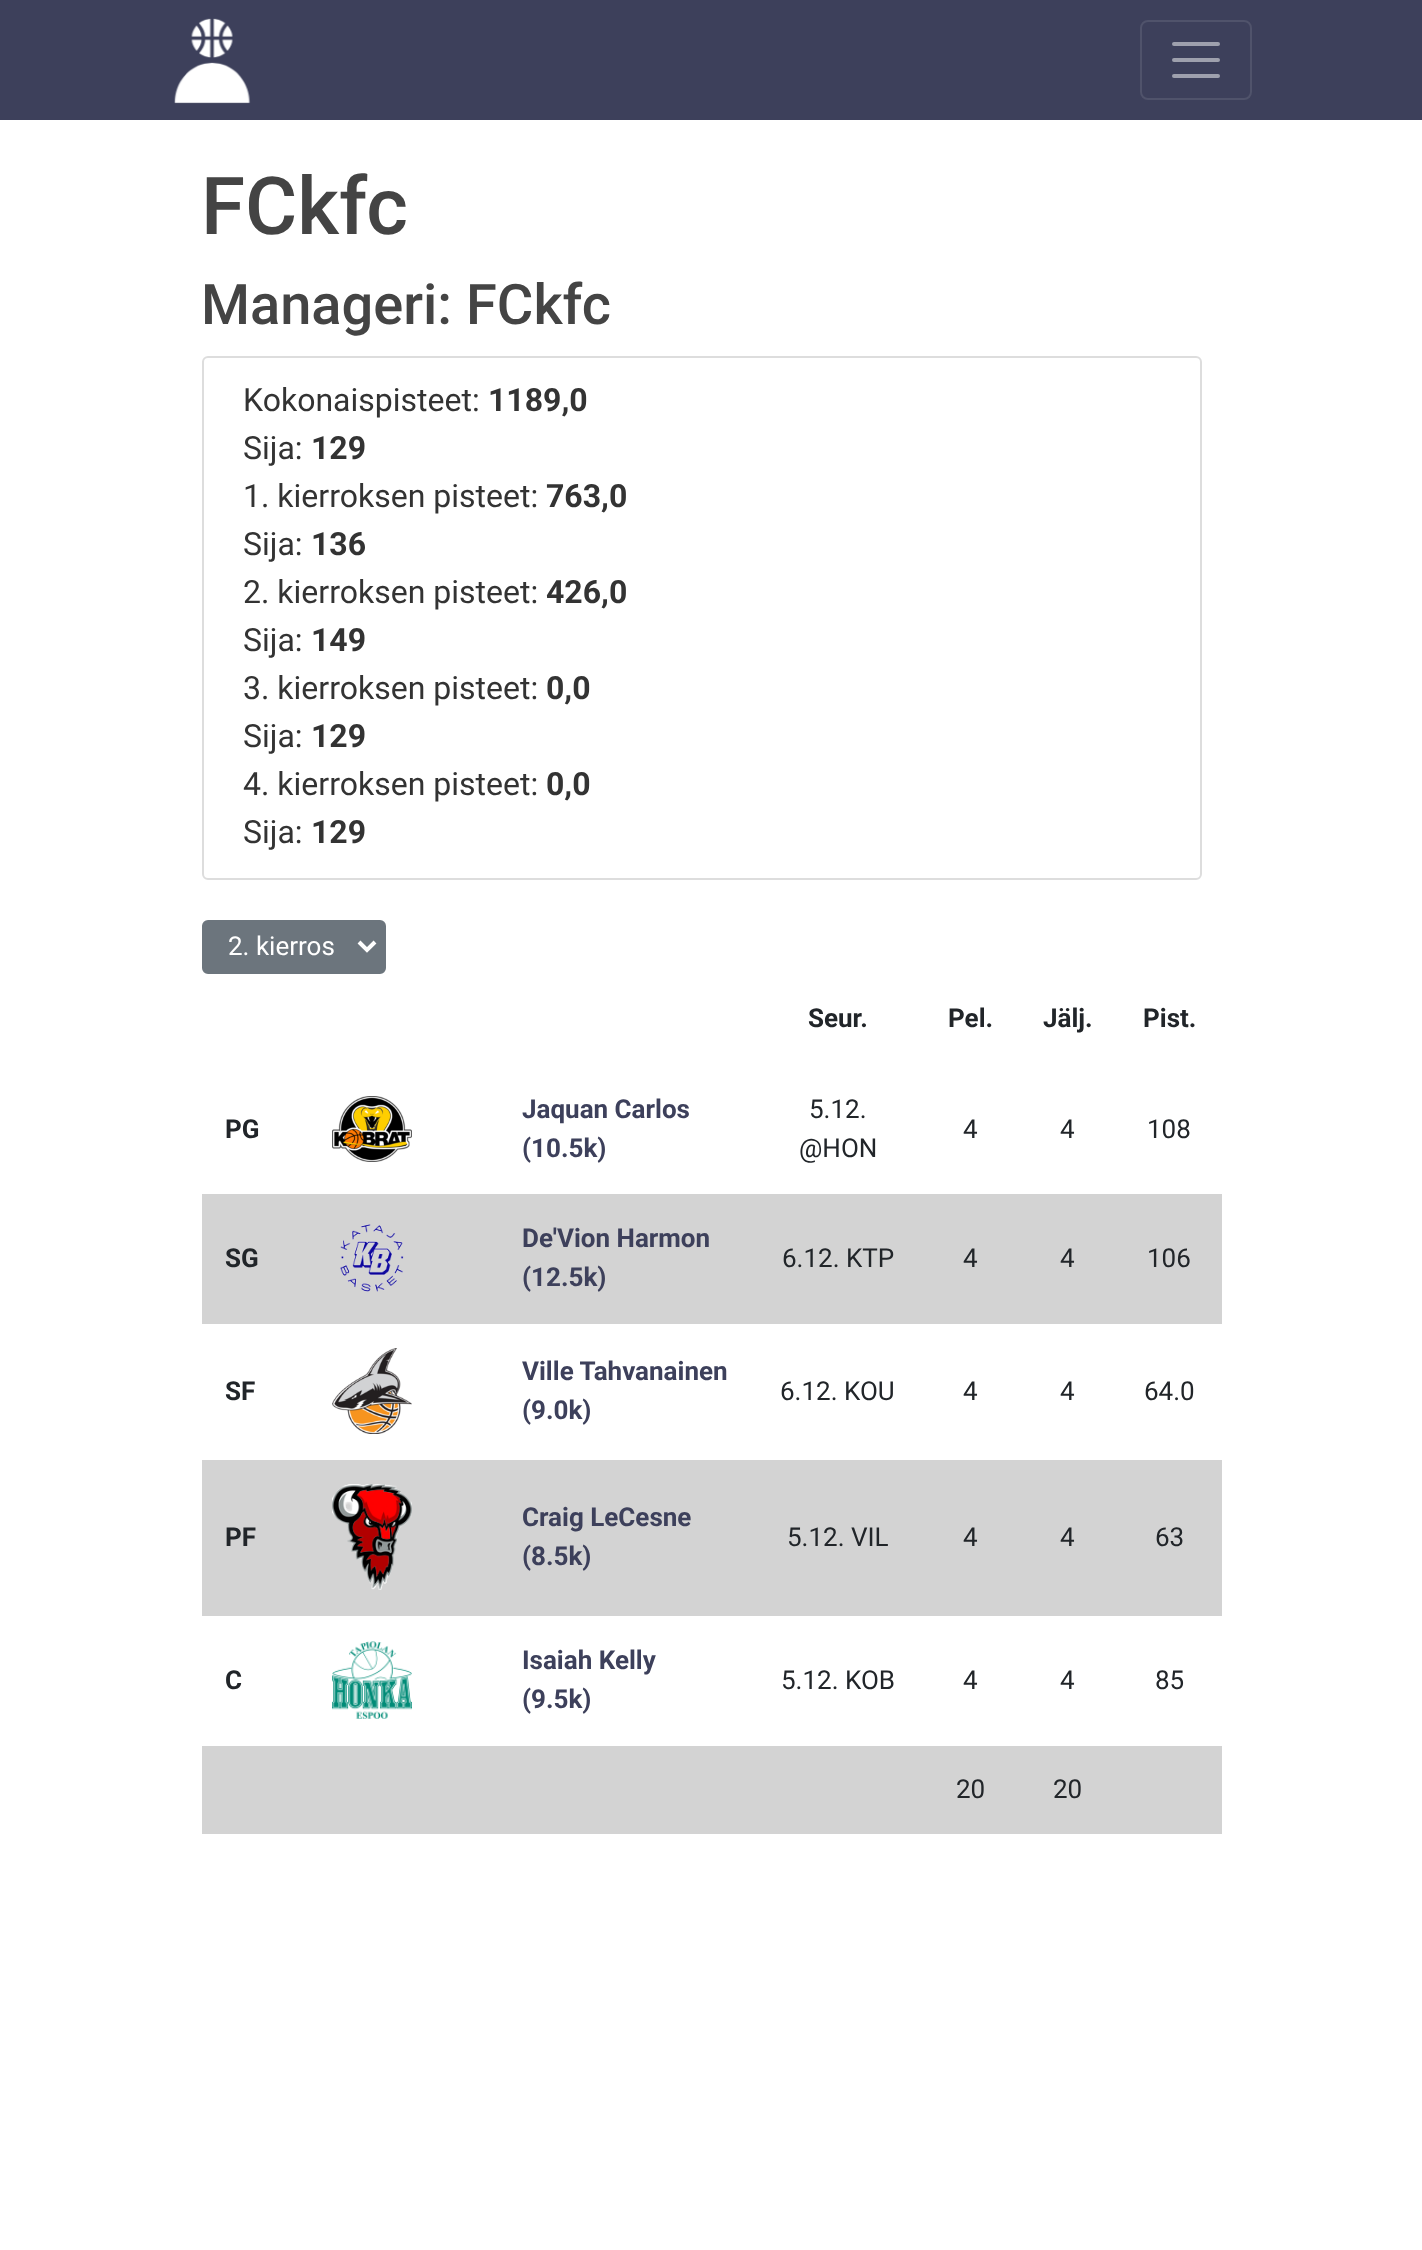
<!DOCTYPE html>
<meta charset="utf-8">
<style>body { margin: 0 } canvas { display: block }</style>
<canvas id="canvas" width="1422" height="2250"></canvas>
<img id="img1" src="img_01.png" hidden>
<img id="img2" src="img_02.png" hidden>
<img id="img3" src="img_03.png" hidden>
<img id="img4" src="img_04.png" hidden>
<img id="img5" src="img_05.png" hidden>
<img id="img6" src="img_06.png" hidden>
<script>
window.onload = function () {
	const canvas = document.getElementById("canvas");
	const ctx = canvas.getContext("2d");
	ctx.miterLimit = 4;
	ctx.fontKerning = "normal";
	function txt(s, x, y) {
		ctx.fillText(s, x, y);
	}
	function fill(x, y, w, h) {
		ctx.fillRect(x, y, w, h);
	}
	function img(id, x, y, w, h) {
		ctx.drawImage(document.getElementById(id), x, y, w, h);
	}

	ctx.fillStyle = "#FFFFFF";
	fill(0, 0, 1422, 2250);
	ctx.fillStyle = "#3D405B";
	fill(0, 0, 1422, 120);
	img("img1", 174, 18, 77, 86);
	ctx.beginPath();
	ctx.roundRect(1141, 21, 110, 78, 7);
	ctx.strokeStyle = "#50536B";
	ctx.lineWidth = 2;
	ctx.stroke();
	ctx.beginPath();
	ctx.moveTo(1174, 44);
	ctx.lineTo(1218, 44);
	ctx.moveTo(1174, 60);
	ctx.lineTo(1218, 60);
	ctx.moveTo(1174, 76);
	ctx.lineTo(1218, 76);
	ctx.strokeStyle = "#9EA0AD";
	ctx.lineWidth = 4;
	ctx.lineCap = "round";
	ctx.stroke();
	ctx.beginPath();
	ctx.roundRect(203, 357, 998, 522, 5);
	ctx.strokeStyle = "#DDDDDD";
	ctx.lineWidth = 2;
	ctx.stroke();
	ctx.fillStyle = "#6C757D";
	ctx.beginPath();
	ctx.roundRect(203, 921, 182, 52, 5);
	ctx.fill();
	ctx.strokeStyle = "#6C757D";
	ctx.stroke();
	ctx.beginPath();
	ctx.moveTo(359, 942);
	ctx.lineTo(367, 950);
	ctx.lineTo(375, 942);
	ctx.strokeStyle = "#FFFFFF";
	ctx.lineWidth = 4;
	ctx.lineCap = "butt";
	ctx.stroke();
	img("img2", 332, 1096, 80, 66);
	ctx.fillStyle = "#D3D3D3";
	fill(202, 1194, 1020, 130);
	img("img3", 340, 1224, 64, 68);
	img("img4", 332, 1348, 80, 86);
	fill(202, 1460, 1020, 156);
	img("img5", 332, 1484, 80, 106);
	img("img6", 332, 1641, 80, 78);
	fill(202, 1746, 1020, 88);
	ctx.font = "500 80px Roboto";
	ctx.fillStyle = "#444444";
	txt("FCkfc", 201, 234);
	ctx.font = "500 56px Roboto";
	txt("Manageri: FCkfc", 201, 324);
	ctx.font = "32px Roboto";
	ctx.fillStyle = "#333333";
	txt("Kokonaispisteet:", 243, 411);
	ctx.font = "bold 32px Roboto";
	txt("1189,0", 488, 411);
	ctx.font = "32px Roboto";
	txt("Sija:", 243, 459);
	ctx.font = "bold 32px Roboto";
	txt("129", 311, 459);
	ctx.font = "32px Roboto";
	txt("1. kierroksen pisteet:", 243, 507);
	ctx.font = "bold 32px Roboto";
	txt("763,0", 546, 507);
	ctx.font = "32px Roboto";
	txt("Sija:", 243, 555);
	ctx.font = "bold 32px Roboto";
	txt("136", 311, 555);
	ctx.font = "32px Roboto";
	txt("2. kierroksen pisteet:", 243, 603);
	ctx.font = "bold 32px Roboto";
	txt("426,0", 546, 603);
	ctx.font = "32px Roboto";
	txt("Sija:", 243, 651);
	ctx.font = "bold 32px Roboto";
	txt("149", 311, 651);
	ctx.font = "32px Roboto";
	txt("3. kierroksen pisteet:", 243, 699);
	ctx.font = "bold 32px Roboto";
	txt("0,0", 546, 699);
	ctx.font = "32px Roboto";
	txt("Sija:", 243, 747);
	ctx.font = "bold 32px Roboto";
	txt("129", 311, 747);
	ctx.font = "32px Roboto";
	txt("4. kierroksen pisteet:", 243, 795);
	ctx.font = "bold 32px Roboto";
	txt("0,0", 546, 795);
	ctx.font = "32px Roboto";
	txt("Sija:", 243, 843);
	ctx.font = "bold 32px Roboto";
	txt("129", 311, 843);
	ctx.font = "26px Roboto";
	ctx.fillStyle = "#FFFFFF";
	txt("2. kierros", 228, 955);
	ctx.font = "bold 26px Roboto";
	ctx.fillStyle = "#212529";
	txt("Seur.", 808, 1027);
	txt("Pel.", 948, 1027);
	txt("Jälj.", 1043, 1027);
	txt("Pist.", 1143, 1027);
	txt("PG", 225, 1138);
	ctx.fillStyle = "#3D405B";
	txt("Jaquan Carlos", 522, 1118);
	txt("(10.5k)", 522, 1157);
	ctx.font = "26px Roboto";
	ctx.fillStyle = "#212529";
	txt("5.12.", 809, 1118);
	txt("@HON", 799, 1157);
	txt("4", 963, 1138);
	txt("4", 1060, 1138);
	txt("108", 1147, 1138);
	ctx.font = "bold 26px Roboto";
	txt("SG", 225, 1267);
	ctx.fillStyle = "#3D405B";
	txt("De'Vion Harmon", 522, 1247);
	txt("(12.5k)", 522, 1286);
	ctx.font = "26px Roboto";
	ctx.fillStyle = "#212529";
	txt("6.12. KTP", 782, 1267);
	txt("4", 963, 1267);
	txt("4", 1060, 1267);
	txt("106", 1147, 1267);
	ctx.font = "bold 26px Roboto";
	txt("SF", 225, 1400);
	ctx.fillStyle = "#3D405B";
	txt("Ville Tahvanainen", 522, 1380);
	txt("(9.0k)", 522, 1419);
	ctx.font = "26px Roboto";
	ctx.fillStyle = "#212529";
	txt("6.12. KOU", 780, 1400);
	txt("4", 963, 1400);
	txt("4", 1060, 1400);
	txt("64.0", 1144, 1400);
	ctx.font = "bold 26px Roboto";
	txt("PF", 225, 1546);
	ctx.fillStyle = "#3D405B";
	txt("Craig LeCesne", 522, 1526);
	txt("(8.5k)", 522, 1565);
	ctx.font = "26px Roboto";
	ctx.fillStyle = "#212529";
	txt("5.12. VIL", 787, 1546);
	txt("4", 963, 1546);
	txt("4", 1060, 1546);
	txt("63", 1155, 1546);
	ctx.font = "bold 26px Roboto";
	txt("C", 225, 1689);
	ctx.fillStyle = "#3D405B";
	txt("Isaiah Kelly", 522, 1669);
	txt("(9.5k)", 522, 1708);
	ctx.font = "26px Roboto";
	ctx.fillStyle = "#212529";
	txt("5.12. KOB", 781, 1689);
	txt("4", 963, 1689);
	txt("4", 1060, 1689);
	txt("85", 1155, 1689);
	txt("20", 956, 1798);
	txt("20", 1053, 1798);
};
</script>
